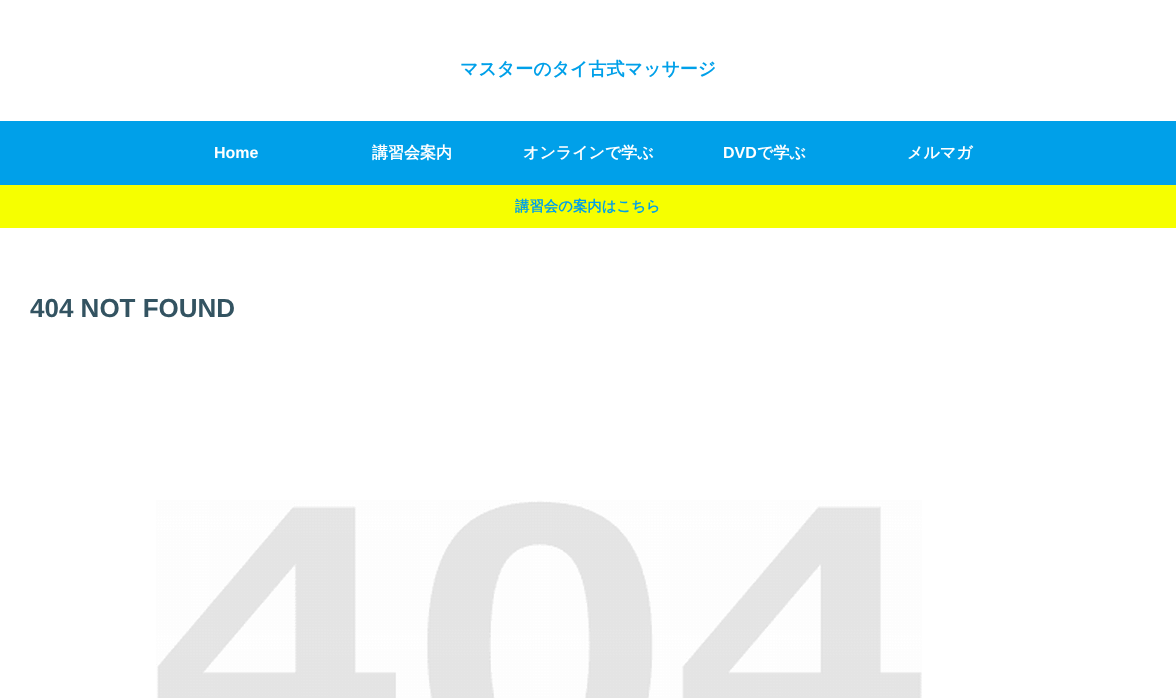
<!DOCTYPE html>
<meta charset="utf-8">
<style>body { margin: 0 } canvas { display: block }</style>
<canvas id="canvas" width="1176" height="698"></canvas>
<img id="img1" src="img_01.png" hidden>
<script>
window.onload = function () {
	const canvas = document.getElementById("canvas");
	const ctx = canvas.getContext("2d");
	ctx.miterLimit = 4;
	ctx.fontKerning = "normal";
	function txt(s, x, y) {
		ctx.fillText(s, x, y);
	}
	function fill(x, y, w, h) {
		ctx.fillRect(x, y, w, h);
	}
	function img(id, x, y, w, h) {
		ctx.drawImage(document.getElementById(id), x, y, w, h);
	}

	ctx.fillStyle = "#FFFFFF";
	fill(0, 0, 1176, 698);
	ctx.fillStyle = "#00A0E9";
	fill(0, 121, 1176, 64);
	ctx.fillStyle = "#F6FF00";
	fill(0, 185, 1176, 43);
	img("img1", 156, 500, 766, 198);
	ctx.font = "bold 18px WenQuanYi Zen Hei";
	ctx.fillStyle = "#00A0E9";
	txt("マスターのタイ古式マッサージ", 460, 75);
	ctx.font = "bold 16px Liberation Sans";
	ctx.fillStyle = "#FFFFFF";
	txt("Home", 214, 158);
	ctx.font = "bold 16px WenQuanYi Zen Hei";
	txt("講習会案内", 372, 158);
	txt("オンラインで学ぶ", 523, 158);
	ctx.font = "bold 16px Liberation Sans";
	txt("DVD", 723, 158);
	ctx.font = "bold 16px WenQuanYi Zen Hei";
	txt("で学ぶ", 757, 158);
	txt("メルマガ", 907, 158);
	ctx.font = "bold 14.4px WenQuanYi Zen Hei";
	ctx.fillStyle = "#00A0E9";
	txt("講習会の案内はこちら", 515, 211);
	ctx.font = "bold 26px Liberation Sans";
	ctx.fillStyle = "#335361";
	txt("404 NOT FOUND", 30, 317);
};
</script>
